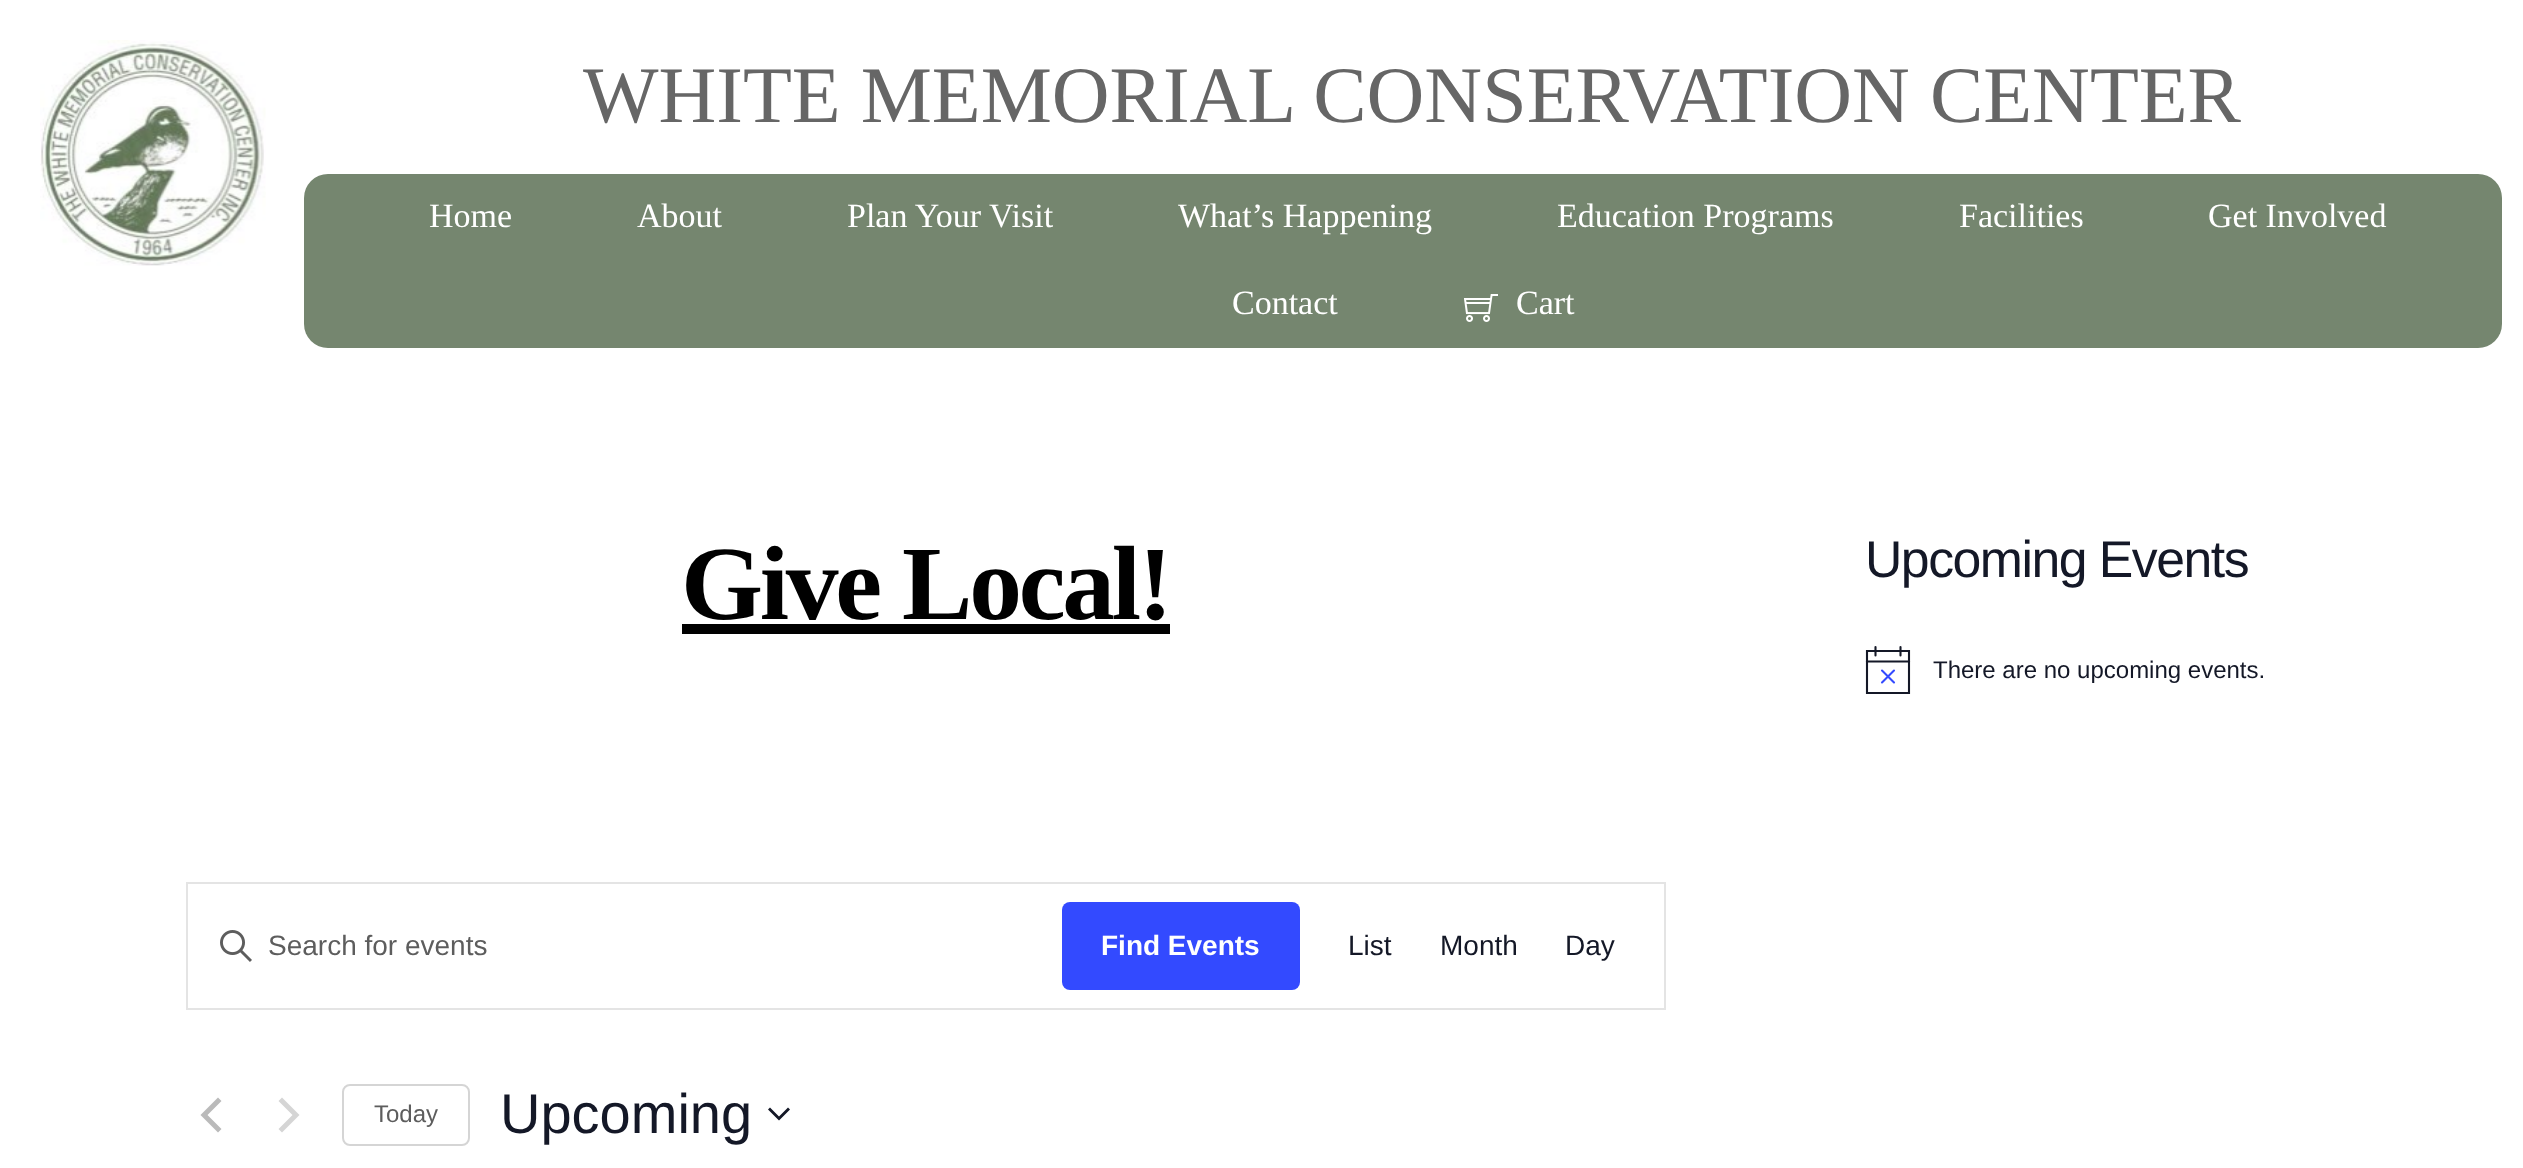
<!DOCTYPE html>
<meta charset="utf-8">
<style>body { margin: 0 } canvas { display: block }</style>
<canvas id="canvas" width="2523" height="1168"></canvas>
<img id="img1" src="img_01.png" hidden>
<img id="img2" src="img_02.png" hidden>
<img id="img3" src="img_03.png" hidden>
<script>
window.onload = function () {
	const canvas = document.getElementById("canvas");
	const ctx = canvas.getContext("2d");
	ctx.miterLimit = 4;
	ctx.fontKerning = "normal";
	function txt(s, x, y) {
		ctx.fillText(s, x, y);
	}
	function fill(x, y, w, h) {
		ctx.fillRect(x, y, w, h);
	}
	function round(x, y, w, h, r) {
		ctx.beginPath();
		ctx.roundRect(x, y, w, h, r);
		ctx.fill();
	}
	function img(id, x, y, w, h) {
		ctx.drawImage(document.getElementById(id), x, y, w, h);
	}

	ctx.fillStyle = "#FFFFFF";
	fill(0, 0, 2523, 1168);
	img("img1", 40, 40, 226, 226);
	ctx.fillStyle = "#75866F";
	round(304, 174, 2198, 174, 24);
	img("img2", 1464, 294, 34, 28);
	ctx.fillStyle = "#000000";
	fill(682, 624, 488, 10);
	ctx.strokeStyle = "#E4E4E4";
	ctx.lineWidth = 2;
	ctx.strokeRect(187, 883, 1478, 126);
	img("img3", 220, 930, 32, 32);
	ctx.fillStyle = "#334AFF";
	round(1062, 902, 238, 88, 8);
	ctx.fillStyle = "#BABABA";
	ctx.beginPath();
	ctx.moveTo(221.5, 1129);
	ctx.lineTo(218, 1132.5);
	ctx.lineTo(200.5, 1115);
	ctx.lineTo(218, 1097.5);
	ctx.lineTo(221.5, 1101);
	ctx.lineTo(207.5, 1115);
	ctx.closePath();
	ctx.fill();
	ctx.fillStyle = "#D5D5D5";
	ctx.beginPath();
	ctx.moveTo(278.5, 1101);
	ctx.lineTo(282, 1097.5);
	ctx.lineTo(299.5, 1115);
	ctx.lineTo(282, 1132.5);
	ctx.lineTo(278.5, 1129);
	ctx.lineTo(292.5, 1115);
	ctx.closePath();
	ctx.fill();
	ctx.beginPath();
	ctx.roundRect(343, 1085, 126, 60, 7);
	ctx.strokeStyle = "#D5D5D5";
	ctx.stroke();
	ctx.fillStyle = "#141827";
	ctx.beginPath();
	ctx.moveTo(770, 1107.5);
	ctx.lineTo(779, 1116.5);
	ctx.lineTo(788, 1107.5);
	ctx.lineTo(790, 1109.5);
	ctx.lineTo(779, 1120.5);
	ctx.lineTo(768, 1109.5);
	ctx.closePath();
	ctx.fill("evenodd");
	ctx.beginPath();
	ctx.moveTo(1867, 651);
	ctx.lineTo(1909, 651);
	ctx.lineTo(1909, 693);
	ctx.lineTo(1867, 693);
	ctx.closePath();
	ctx.strokeStyle = "#141827";
	ctx.lineWidth = 2.1;
	ctx.stroke();
	ctx.beginPath();
	ctx.moveTo(1882, 670.5);
	ctx.lineTo(1894, 682.5);
	ctx.moveTo(1894, 670.5);
	ctx.lineTo(1882, 682.5);
	ctx.strokeStyle = "#334AFF";
	ctx.lineCap = "round";
	ctx.stroke();
	ctx.beginPath();
	ctx.moveTo(1875.5, 647);
	ctx.lineTo(1875.5, 655.5);
	ctx.moveTo(1900.5, 647);
	ctx.lineTo(1900.5, 655.5);
	ctx.strokeStyle = "#141827";
	ctx.stroke();
	ctx.beginPath();
	ctx.moveTo(1867, 661.5);
	ctx.lineTo(1909, 661.5);
	ctx.lineCap = "square";
	ctx.stroke();
	ctx.font = "80px Liberation Serif";
	ctx.fillStyle = "#666666";
	txt("WHITE MEMORIAL CONSERVATION CENTER", 583, 122);
	ctx.font = "34px Liberation Serif";
	ctx.fillStyle = "#FFFFFF";
	txt("Home", 429, 227);
	txt("About", 637, 227);
	txt("Plan Your Visit", 847, 227);
	txt("What’s Happening", 1178, 227);
	txt("Education Programs", 1557, 227);
	txt("Facilities", 1959, 227);
	txt("Get Involved", 2208, 227);
	txt("Contact", 1232, 314);
	txt("Cart", 1516, 314);
	ctx.letterSpacing = "-3.25px";
	ctx.font = "bold 105.5px Liberation Serif";
	ctx.fillStyle = "#000000";
	txt("Give Local!", 681, 619);
	ctx.letterSpacing = "0px";
	ctx.font = "28px Liberation Sans";
	ctx.fillStyle = "#5D5D5D";
	txt("Search for events", 268, 955);
	ctx.font = "bold 28px Liberation Sans";
	ctx.fillStyle = "#FFFFFF";
	txt("Find Events", 1101, 955);
	ctx.font = "28px Liberation Sans";
	ctx.fillStyle = "#141827";
	txt("List", 1348, 955);
	txt("Month", 1440, 955);
	txt("Day", 1565, 955);
	ctx.font = "24px Liberation Sans";
	ctx.fillStyle = "#5D5D5D";
	txt("Today", 374, 1122);
	ctx.font = "56px Liberation Sans";
	ctx.fillStyle = "#141827";
	txt("Upcoming", 500, 1133);
	ctx.letterSpacing = "-1.5px";
	ctx.font = "51.75px Liberation Sans";
	txt("Upcoming Events", 1865, 577);
	ctx.letterSpacing = "0px";
	ctx.font = "24px Liberation Sans";
	txt("There are no upcoming events.", 1933, 678);
};
</script>
